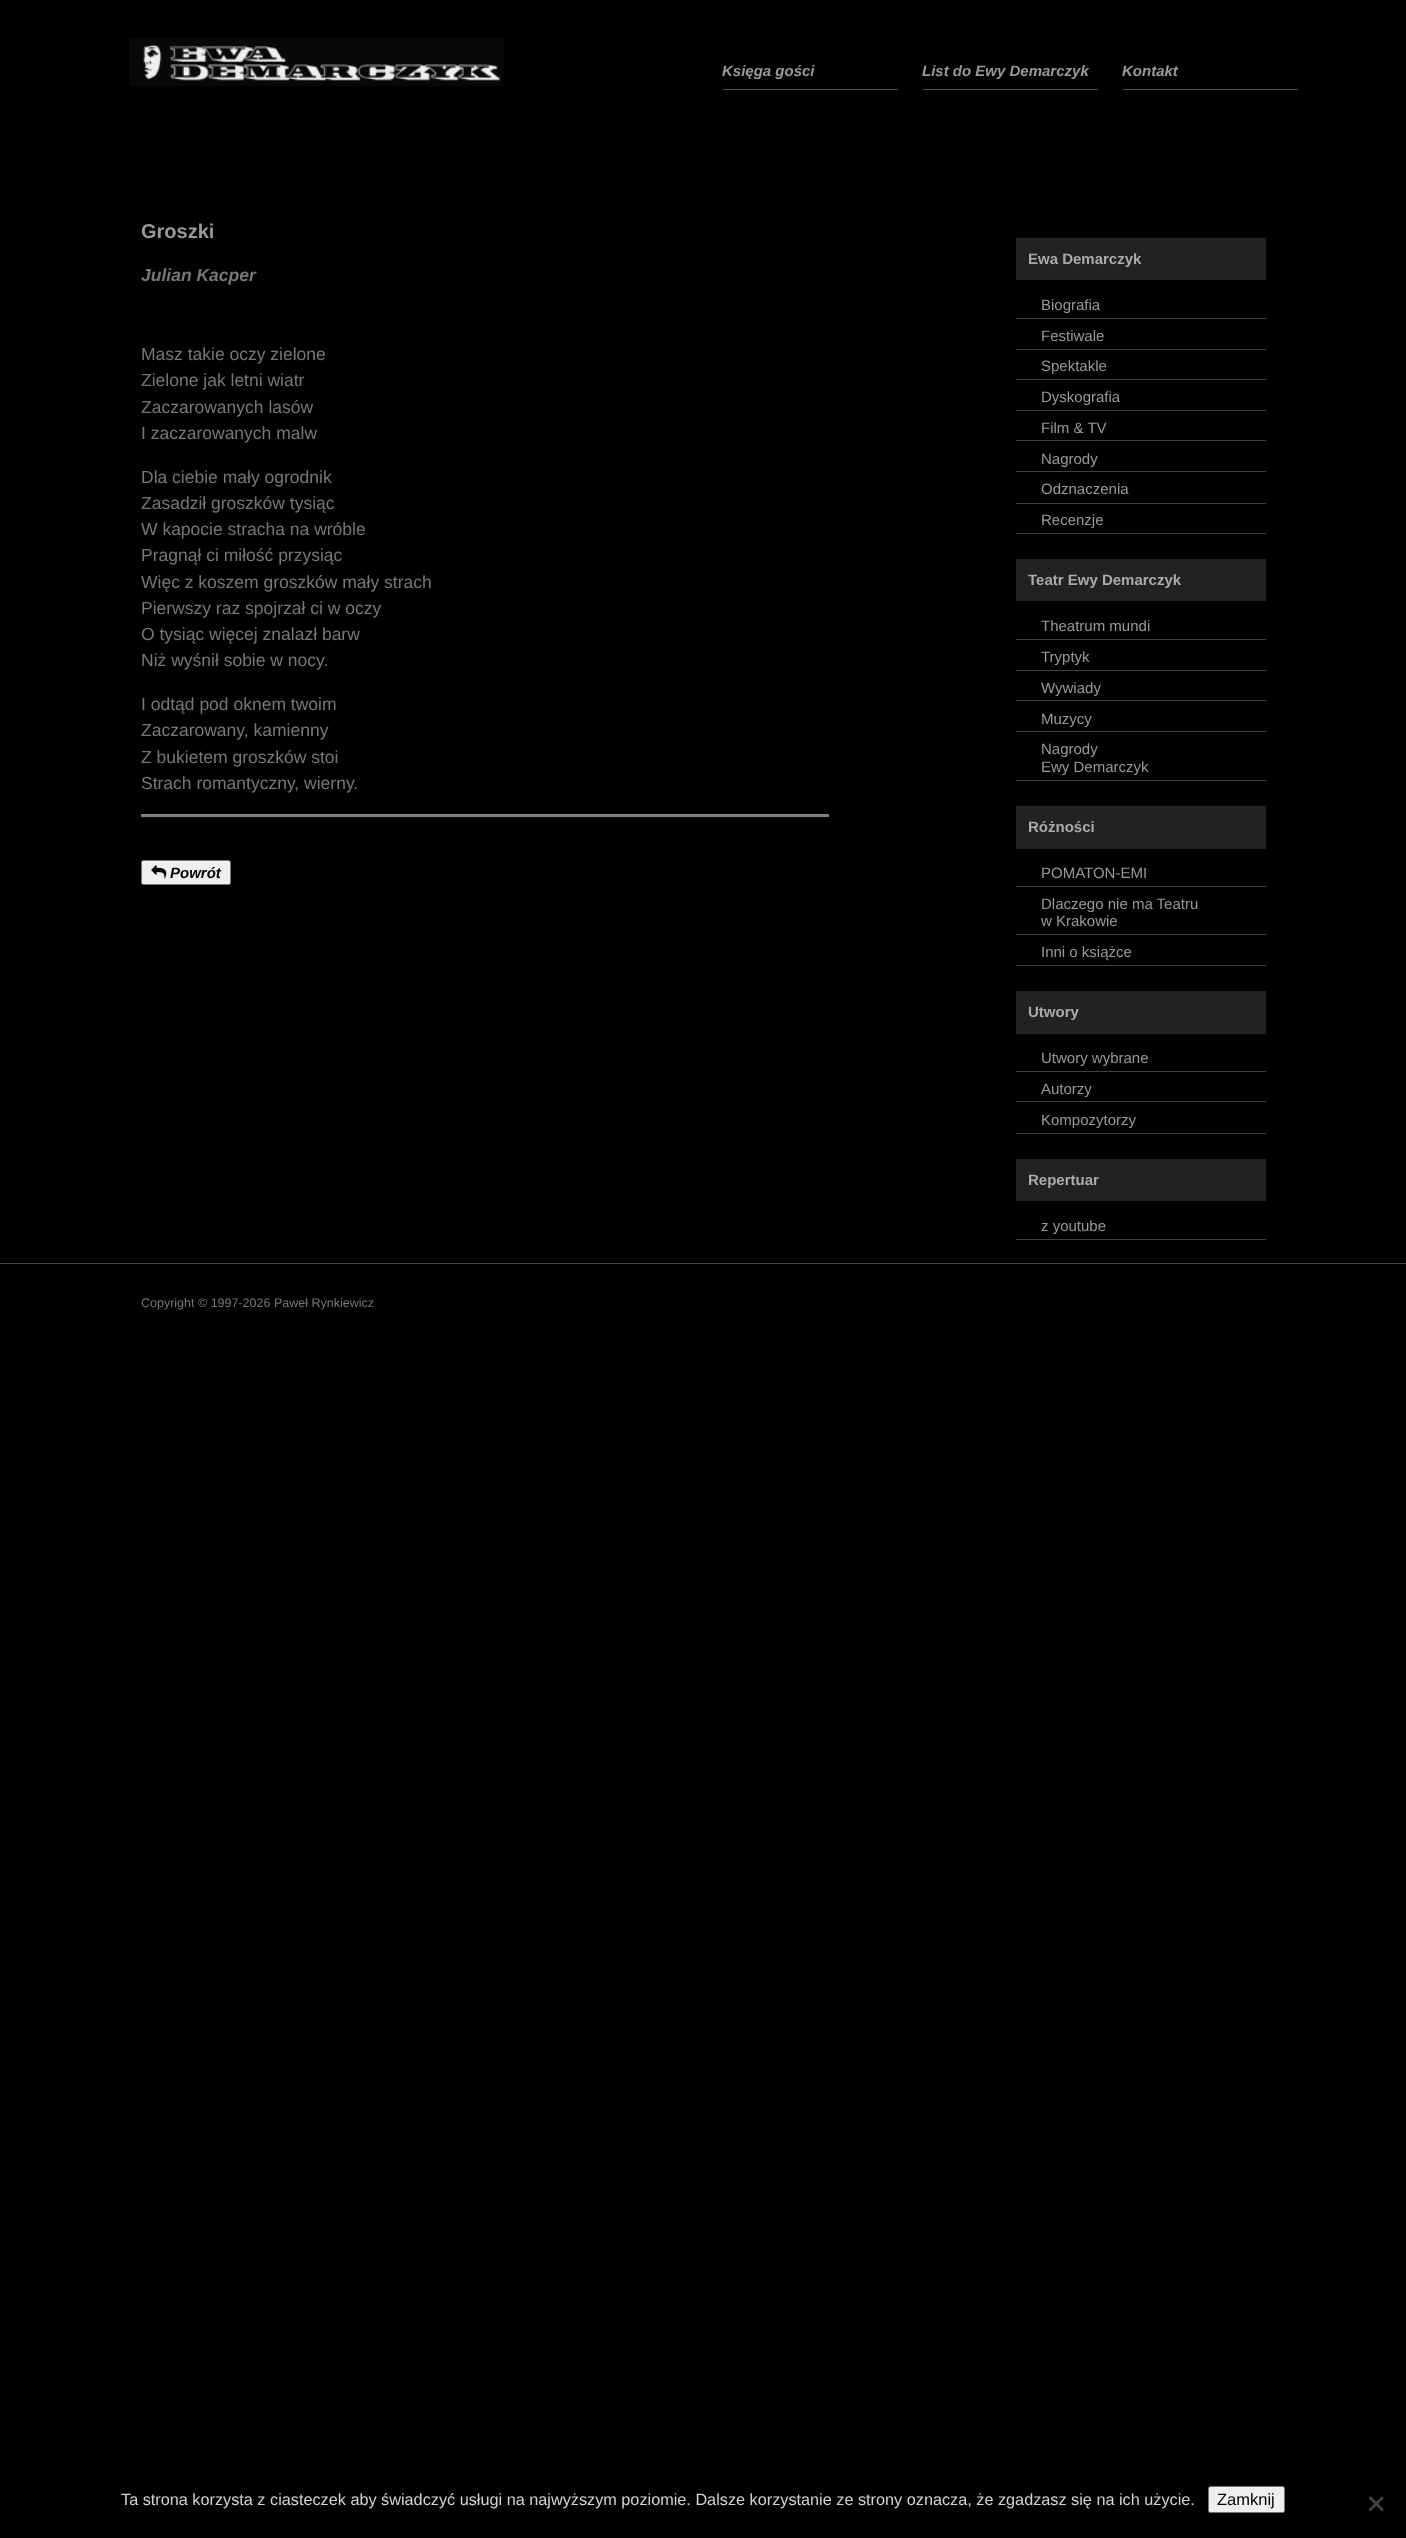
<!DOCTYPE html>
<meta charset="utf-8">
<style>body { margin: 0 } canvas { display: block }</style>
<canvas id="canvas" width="1406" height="2538"></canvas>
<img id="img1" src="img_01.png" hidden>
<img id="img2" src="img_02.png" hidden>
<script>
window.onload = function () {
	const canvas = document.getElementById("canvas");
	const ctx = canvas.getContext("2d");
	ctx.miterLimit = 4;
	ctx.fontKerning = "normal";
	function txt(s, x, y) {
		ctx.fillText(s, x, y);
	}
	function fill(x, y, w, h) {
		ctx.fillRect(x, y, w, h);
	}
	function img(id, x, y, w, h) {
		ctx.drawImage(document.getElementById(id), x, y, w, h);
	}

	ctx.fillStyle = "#000000";
	fill(0, 0, 1406, 2538);
	img("img1", 129, 37, 375, 49);
	ctx.fillStyle = "#555555";
	fill(723, 89, 175, 1);
	fill(923, 89, 175, 1);
	fill(1123, 89, 175, 1);
	ctx.fillStyle = "#808080";
	fill(141, 814, 688, 3);
	ctx.fillStyle = "#EFEFEF";
	ctx.beginPath();
	ctx.roundRect(141.5, 860.5, 89, 24, 2);
	ctx.fill();
	ctx.strokeStyle = "#767676";
	ctx.stroke();
	img("img2", 151, 865, 16, 14);
	ctx.fillStyle = "#222222";
	fill(1016, 238, 250, 42);
	ctx.fillStyle = "#404040";
	fill(1016, 318, 250, 1);
	fill(1016, 349, 250, 1);
	fill(1016, 379, 250, 1);
	fill(1016, 410, 250, 1);
	fill(1016, 440, 250, 1);
	fill(1016, 471, 250, 1);
	fill(1016, 503, 250, 1);
	fill(1016, 533, 250, 1);
	ctx.fillStyle = "#222222";
	fill(1016, 559, 250, 42);
	ctx.fillStyle = "#404040";
	fill(1016, 639, 250, 1);
	fill(1016, 670, 250, 1);
	fill(1016, 700, 250, 1);
	fill(1016, 731, 250, 1);
	fill(1016, 780, 250, 1);
	ctx.fillStyle = "#222222";
	fill(1016, 806, 250, 43);
	ctx.fillStyle = "#404040";
	fill(1016, 886, 250, 1);
	fill(1016, 934, 250, 1);
	fill(1016, 965, 250, 1);
	ctx.fillStyle = "#222222";
	fill(1016, 991, 250, 43);
	ctx.fillStyle = "#404040";
	fill(1016, 1071, 250, 1);
	fill(1016, 1101, 250, 1);
	fill(1016, 1133, 250, 1);
	ctx.fillStyle = "#222222";
	fill(1016, 1159, 250, 42);
	ctx.fillStyle = "#404040";
	fill(1016, 1239, 250, 1);
	ctx.fillStyle = "#444444";
	fill(0, 1263, 1406, 1);
	ctx.fillStyle = "#EFEFEF";
	ctx.beginPath();
	ctx.roundRect(1208.5, 2486.5, 76, 26, 2);
	ctx.fill();
	ctx.stroke();
	ctx.fillStyle = "#404040";
	ctx.beginPath();
	ctx.moveTo(1382, 2496);
	ctx.lineTo(1384, 2498);
	ctx.lineTo(1370.5, 2511.5);
	ctx.lineTo(1368.5, 2509.5);
	ctx.closePath();
	ctx.fill();
	ctx.beginPath();
	ctx.moveTo(1368.5, 2498);
	ctx.lineTo(1370.5, 2496);
	ctx.lineTo(1384, 2509.5);
	ctx.lineTo(1382, 2511.5);
	ctx.closePath();
	ctx.fill();
	ctx.font = "italic bold 15px Liberation Sans";
	ctx.fillStyle = "#999999";
	txt("Księga gości", 722, 76);
	txt("List do Ewy Demarczyk", 922, 76);
	txt("Kontakt", 1122, 76);
	ctx.font = "bold 20px Liberation Sans";
	txt("Groszki", 141, 238);
	ctx.font = "italic bold 17.5px Liberation Sans";
	ctx.fillStyle = "#777777";
	txt("Julian Kacper", 141, 281);
	ctx.font = "17.5px Liberation Sans";
	txt("Masz takie oczy zielone", 141, 360);
	txt("Zielone jak letni wiatr", 141, 386);
	txt("Zaczarowanych lasów", 141, 413);
	txt("I zaczarowanych malw", 141, 439);
	txt("Dla ciebie mały ogrodnik", 141, 483);
	txt("Zasadził groszków tysiąc", 141, 509);
	txt("W kapocie stracha na wróble", 141, 535);
	txt("Pragnął ci miłość przysiąc", 141, 561);
	txt("Więc z koszem groszków mały strach", 141, 588);
	txt("Pierwszy raz spojrzał ci w oczy", 141, 614);
	txt("O tysiąc więcej znalazł barw", 141, 640);
	txt("Niż wyśnił sobie w nocy.", 141, 666);
	txt("I odtąd pod oknem twoim", 141, 710);
	txt("Zaczarowany, kamienny", 141, 736);
	txt("Z bukietem groszków stoi", 141, 763);
	txt("Strach romantyczny, wierny.", 141, 789);
	ctx.font = "italic bold 15px Liberation Sans";
	ctx.fillStyle = "#000000";
	txt("Powrót", 170, 878);
	ctx.font = "bold 15px Liberation Sans";
	ctx.fillStyle = "#AAAAAA";
	txt("Ewa Demarczyk", 1028, 264);
	ctx.font = "15px Liberation Sans";
	ctx.fillStyle = "#999999";
	txt("Biografia", 1041, 310);
	txt("Festiwale", 1041, 341);
	txt("Spektakle", 1041, 371);
	txt("Dyskografia", 1041, 402);
	txt("Film & TV", 1041, 433);
	txt("Nagrody", 1041, 464);
	txt("Odznaczenia", 1041, 494);
	txt("Recenzje", 1041, 525);
	ctx.font = "bold 15px Liberation Sans";
	ctx.fillStyle = "#AAAAAA";
	txt("Teatr Ewy Demarczyk", 1028, 585);
	ctx.font = "15px Liberation Sans";
	ctx.fillStyle = "#999999";
	txt("Theatrum mundi", 1041, 631);
	txt("Tryptyk", 1041, 662);
	txt("Wywiady", 1041, 693);
	txt("Muzycy", 1041, 724);
	txt("Nagrody", 1041, 754);
	txt("Ewy Demarczyk", 1041, 772);
	ctx.font = "bold 15px Liberation Sans";
	ctx.fillStyle = "#AAAAAA";
	txt("Różności", 1028, 832);
	ctx.font = "15px Liberation Sans";
	ctx.fillStyle = "#999999";
	txt("POMATON-EMI", 1041, 878);
	txt("Dlaczego nie ma Teatru", 1041, 909);
	txt("w Krakowie", 1041, 926);
	txt("Inni o książce", 1041, 957);
	ctx.font = "bold 15px Liberation Sans";
	ctx.fillStyle = "#AAAAAA";
	txt("Utwory", 1028, 1017);
	ctx.font = "15px Liberation Sans";
	ctx.fillStyle = "#999999";
	txt("Utwory wybrane", 1041, 1063);
	txt("Autorzy", 1041, 1094);
	txt("Kompozytorzy", 1041, 1125);
	ctx.font = "bold 15px Liberation Sans";
	ctx.fillStyle = "#AAAAAA";
	txt("Repertuar", 1028, 1185);
	ctx.font = "15px Liberation Sans";
	ctx.fillStyle = "#999999";
	txt("z youtube", 1041, 1231);
	ctx.font = "12.5px Liberation Sans";
	ctx.fillStyle = "#777777";
	txt("Copyright © 1997-2026 Paweł Rynkiewicz", 141, 1307);
	ctx.font = "16.25px Liberation Sans";
	ctx.fillStyle = "#D3D3D3";
	txt("Ta strona korzysta z ciasteczek aby świadczyć usługi na najwyższym poziomie. Dalsze korzystanie ze strony oznacza, że zgadzasz się na ich użycie.", 121, 2505);
	ctx.font = "16.5px Liberation Sans";
	ctx.fillStyle = "#000000";
	txt("Zamknij", 1217, 2505);
};
</script>
